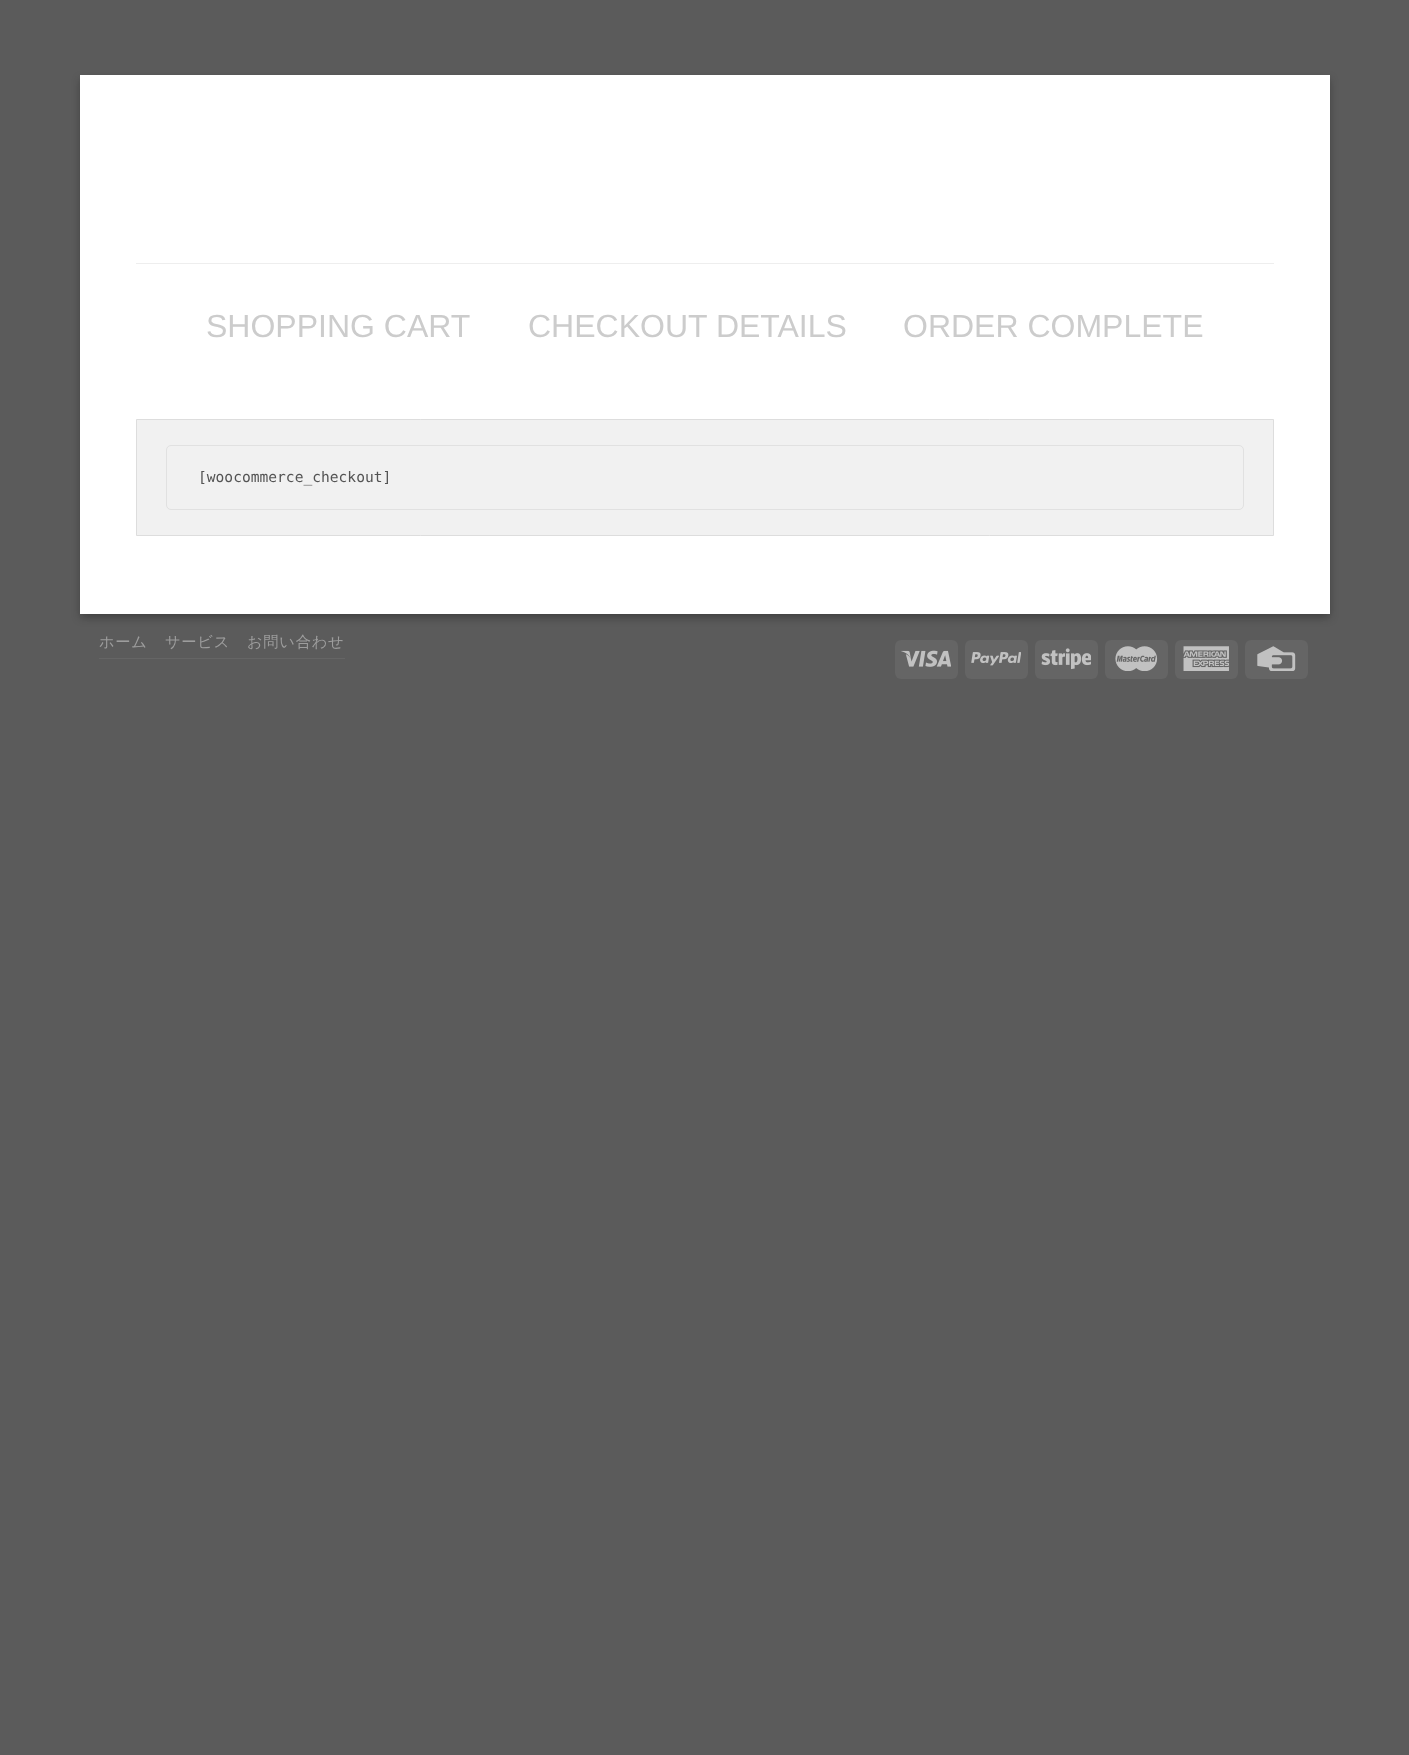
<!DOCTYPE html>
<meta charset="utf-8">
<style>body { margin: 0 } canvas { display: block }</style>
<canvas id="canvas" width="1409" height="1755"></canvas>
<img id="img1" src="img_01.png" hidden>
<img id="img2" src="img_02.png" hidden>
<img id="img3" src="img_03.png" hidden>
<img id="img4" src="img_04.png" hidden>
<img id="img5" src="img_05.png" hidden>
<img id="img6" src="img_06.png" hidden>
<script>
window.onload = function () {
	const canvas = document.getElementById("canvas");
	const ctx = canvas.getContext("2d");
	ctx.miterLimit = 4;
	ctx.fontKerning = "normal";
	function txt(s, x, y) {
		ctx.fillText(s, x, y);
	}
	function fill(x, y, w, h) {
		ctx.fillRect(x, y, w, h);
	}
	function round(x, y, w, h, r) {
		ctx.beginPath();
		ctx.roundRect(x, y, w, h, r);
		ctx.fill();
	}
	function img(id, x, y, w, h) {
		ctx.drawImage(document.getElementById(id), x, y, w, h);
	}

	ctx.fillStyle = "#5B5B5B";
	fill(0, 0, 1409, 1755);
	ctx.fillStyle = "rgba(0, 0, 0, 0.23)";
	ctx.filter = "blur(4px)";
	ctx.beginPath();
	ctx.rect(80, 79, 1250, 539);
	ctx.fill();
	ctx.filter = "none";
	ctx.fillStyle = "rgba(0, 0, 0, 0.16)";
	ctx.filter = "blur(4px)";
	ctx.beginPath();
	ctx.rect(85, 84, 1240, 529);
	ctx.fill();
	ctx.filter = "none";
	ctx.fillStyle = "#FFFFFF";
	fill(80, 75, 1250, 539);
	ctx.fillStyle = "#EEEEEE";
	fill(136, 263, 1138, 1);
	ctx.fillStyle = "#F1F1F1";
	ctx.beginPath();
	ctx.rect(136.5, 419.5, 1137, 116);
	ctx.fill();
	ctx.strokeStyle = "#DDDDDD";
	ctx.stroke();
	ctx.beginPath();
	ctx.roundRect(166.5, 445.5, 1077, 64, 4.5);
	ctx.strokeStyle = "#E1E1E1";
	ctx.stroke();
	ctx.fillStyle = "#656565";
	fill(99, 658, 246, 1);
	round(895, 640, 63, 39, 6);
	img("img1", 901, 650, 50, 17);
	round(965, 640, 63, 39, 6);
	img("img2", 971, 652, 50, 14);
	round(1035, 640, 63, 39, 6);
	img("img3", 1041, 648, 50, 22);
	round(1105, 640, 63, 39, 6);
	img("img4", 1115, 646, 43, 25);
	round(1175, 640, 63, 39, 6);
	img("img5", 1183, 646, 46, 25);
	round(1245, 640, 63, 39, 6);
	img("img6", 1257, 646, 39, 25);
	ctx.font = "32px Liberation Sans";
	ctx.fillStyle = "#CCCCCC";
	txt("SHOPPING CART", 206, 337);
	txt("CHECKOUT DETAILS", 528, 337);
	txt("ORDER COMPLETE", 903, 337);
	ctx.font = "14.6px DejaVu Sans Mono";
	ctx.fillStyle = "#545454";
	txt("[woocommerce_checkout]", 198, 482);
	ctx.letterSpacing = "0.75px";
	ctx.font = "500 15.25px WenQuanYi Zen Hei";
	ctx.fillStyle = "#9D9D9D";
	txt("ホーム", 99, 647);
	txt("サービス", 165, 647);
	txt("お問い合わせ", 247, 647);
};
</script>
